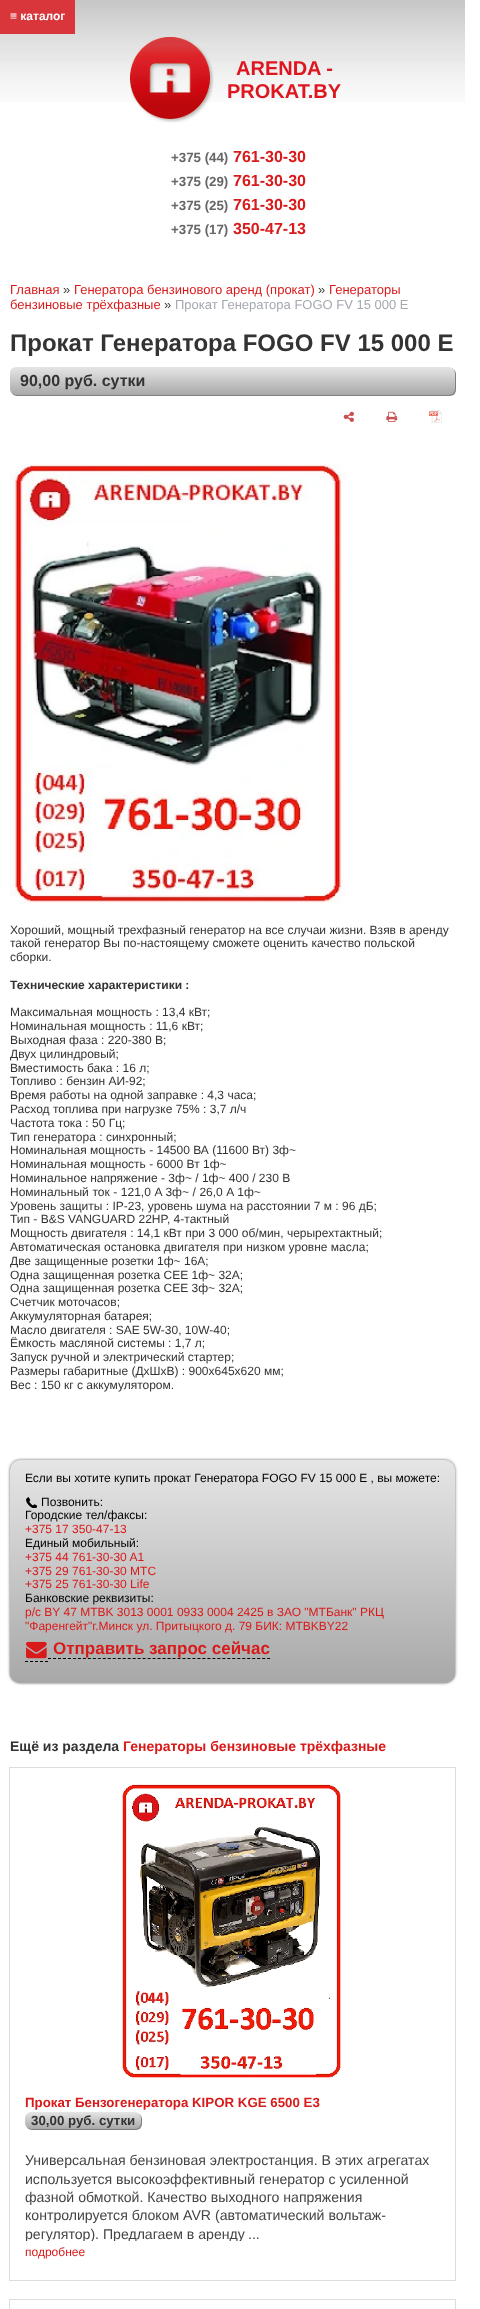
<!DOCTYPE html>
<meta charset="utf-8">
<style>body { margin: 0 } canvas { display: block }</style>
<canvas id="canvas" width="480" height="2309"></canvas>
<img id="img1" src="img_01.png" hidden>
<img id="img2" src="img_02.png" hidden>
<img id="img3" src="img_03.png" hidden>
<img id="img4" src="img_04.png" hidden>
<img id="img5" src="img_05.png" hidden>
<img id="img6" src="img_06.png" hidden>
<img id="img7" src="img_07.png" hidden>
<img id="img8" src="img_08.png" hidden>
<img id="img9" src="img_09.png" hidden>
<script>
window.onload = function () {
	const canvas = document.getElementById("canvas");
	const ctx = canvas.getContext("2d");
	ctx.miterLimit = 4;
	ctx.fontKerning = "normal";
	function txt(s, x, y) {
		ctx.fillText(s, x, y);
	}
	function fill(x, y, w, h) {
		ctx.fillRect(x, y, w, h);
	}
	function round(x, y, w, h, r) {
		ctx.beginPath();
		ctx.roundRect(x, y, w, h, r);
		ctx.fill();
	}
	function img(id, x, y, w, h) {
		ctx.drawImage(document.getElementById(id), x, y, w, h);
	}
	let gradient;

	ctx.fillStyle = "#FFFFFF";
	fill(0, 0, 480, 2309);
	img("img1", 0, 0, 465, 102);
	ctx.fillStyle = "#D8363A";
	fill(0, 0, 75, 34);
	img("img2", 130, 37, 84, 86);
	ctx.fillStyle = "rgba(0, 0, 0, 0.5)";
	ctx.filter = "blur(0.5px)";
	ctx.beginPath();
	ctx.roundRect(11, 368, 445, 28, 6);
	ctx.fill();
	ctx.filter = "none";
	gradient = ctx.createLinearGradient(233, 367, 233, 395);
	gradient.addColorStop(0, "#E5E5E5");
	gradient.addColorStop(0.31, "#D3D3D3");
	gradient.addColorStop(1, "#A8A8A8");
	ctx.fillStyle = gradient;
	round(10, 367, 445, 28, 6);
	img("img3", 343, 411, 11, 11);
	img("img4", 386, 411, 12, 11);
	img("img5", 429, 410, 13, 13);
	img("img6", 10, 464, 336, 440);
	ctx.fillStyle = "rgba(0, 0, 0, 0.6)";
	ctx.filter = "blur(1.5px)";
	ctx.beginPath();
	ctx.roundRect(10, 1460, 445, 223, 10);
	ctx.fill();
	ctx.filter = "none";
	gradient = ctx.createLinearGradient(233, 1460, 233, 1683);
	gradient.addColorStop(0, "#E5E5E5");
	gradient.addColorStop(0.31, "#D3D3D3");
	gradient.addColorStop(1, "#A8A8A8");
	ctx.fillStyle = gradient;
	round(10, 1460, 445, 223, 10);
	img("img7", 26, 1497, 11, 11);
	ctx.beginPath();
	ctx.moveTo(25, 1661.5);
	ctx.lineTo(48, 1661.5);
	ctx.strokeStyle = "#000000";
	ctx.setLineDash([3, 2]);
	ctx.stroke();
	ctx.beginPath();
	ctx.moveTo(48, 1658.5);
	ctx.lineTo(51, 1658.5);
	ctx.setLineDash([]);
	ctx.stroke();
	ctx.beginPath();
	ctx.moveTo(53, 1658.5);
	ctx.lineTo(270, 1658.5);
	ctx.setLineDash([3, 1.98]);
	ctx.stroke();
	img("img8", 26, 1641, 21, 18);
	ctx.strokeStyle = "#DDDDDD";
	ctx.setLineDash([]);
	ctx.strokeRect(9.5, 1767.5, 446, 513);
	img("img9", 122, 1783, 219, 295);
	ctx.fillStyle = "rgba(0, 0, 0, 0.5)";
	ctx.filter = "blur(0.5px)";
	ctx.beginPath();
	ctx.roundRect(26, 2113, 116, 17, 6);
	ctx.fill();
	ctx.filter = "none";
	gradient = ctx.createLinearGradient(83, 2112, 83, 2129);
	gradient.addColorStop(0, "#E5E5E5");
	gradient.addColorStop(0.31, "#D3D3D3");
	gradient.addColorStop(1, "#A8A8A8");
	ctx.fillStyle = gradient;
	round(25, 2112, 116, 17, 6);
	ctx.strokeRect(9.5, 2299.5, 446, 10);
	ctx.font = "bold 12px Liberation Sans";
	ctx.fillStyle = "#FFFFFF";
	txt("≡ каталог", 10, 20);
	ctx.font = "bold 20px Liberation Sans";
	ctx.fillStyle = "#DE1620";
	txt("ARENDA -", 236, 75);
	txt("PROKAT.BY", 227, 98);
	ctx.font = "bold 13.3px Liberation Sans";
	ctx.fillStyle = "#666666";
	txt("+375 (44)", 171, 162);
	ctx.font = "bold 16px Liberation Sans";
	ctx.fillStyle = "#D91A1A";
	txt("761-30-30", 233, 162);
	ctx.font = "bold 13.3px Liberation Sans";
	ctx.fillStyle = "#666666";
	txt("+375 (29)", 171, 186);
	ctx.font = "bold 16px Liberation Sans";
	ctx.fillStyle = "#D91A1A";
	txt("761-30-30", 233, 186);
	ctx.font = "bold 13.3px Liberation Sans";
	ctx.fillStyle = "#666666";
	txt("+375 (25)", 171, 210);
	ctx.font = "bold 16px Liberation Sans";
	ctx.fillStyle = "#D91A1A";
	txt("761-30-30", 233, 210);
	ctx.font = "bold 13.3px Liberation Sans";
	ctx.fillStyle = "#666666";
	txt("+375 (17)", 171, 234);
	ctx.font = "bold 16px Liberation Sans";
	ctx.fillStyle = "#D91A1A";
	txt("350-47-13", 233, 234);
	ctx.font = "13px Liberation Sans";
	txt("Главная", 10, 294);
	ctx.fillStyle = "#333333";
	txt("»", 63, 294);
	ctx.fillStyle = "#D91A1A";
	txt("Генератора бензинового аренд (прокат)", 74, 294);
	ctx.fillStyle = "#333333";
	txt("»", 318, 294);
	ctx.fillStyle = "#D91A1A";
	txt("Генераторы", 329, 294);
	txt("бензиновые трёхфазные", 10, 309);
	ctx.fillStyle = "#333333";
	txt("»", 164, 309);
	ctx.fillStyle = "#A4A8AF";
	txt("Прокат Генератора FOGO FV 15 000 E", 175, 309);
	ctx.font = "bold 24px Liberation Sans";
	ctx.fillStyle = "#333333";
	txt("Прокат Генератора FOGO FV 15 000 E", 10, 351);
	ctx.font = "bold 16px Liberation Sans";
	txt("90,00 руб. сутки", 20, 386);
	ctx.font = "12px Liberation Sans";
	txt("Хороший, мощный трехфазный генератор на все случаи жизни. Взяв в аренду", 10, 934);
	txt("такой генератор Вы по-настоящему сможете оценить качество польской", 10, 947);
	txt("сборки.", 10, 961);
	ctx.font = "bold 12px Liberation Sans";
	txt("Технические характеристики :", 10, 989);
	ctx.font = "12px Liberation Sans";
	txt("Максимальная мощность : 13,4 кВт;", 10, 1016);
	txt("Номинальная мощность : 11,6 кВт;", 10, 1030);
	txt("Выходная фаза : 220-380 В;", 10, 1044);
	txt("Двух цилиндровый;", 10, 1058);
	txt("Вместимость бака : 16 л;", 10, 1072);
	txt("Топливо : бензин АИ-92;", 10, 1085);
	txt("Время работы на одной заправке : 4,3 часа;", 10, 1099);
	txt("Расход топлива при нагрузке 75% : 3,7 л/ч", 10, 1113);
	txt("Частота тока : 50 Гц;", 10, 1127);
	txt("Тип генератора : синхронный;", 10, 1141);
	txt("Номинальная мощность - 14500 ВА (11600 Вт) 3ф~", 10, 1154);
	txt("Номинальная мощность - 6000 Вт 1ф~", 10, 1168);
	txt("Номинальное напряжение - 3ф~ / 1ф~ 400 / 230 В", 10, 1182);
	ctx.wordSpacing = "0.25px";
	txt("Номинальный ток - 121,0 A 3ф~ / 26,0 A 1ф~", 10, 1196);
	ctx.wordSpacing = "0px";
	txt("Уровень защиты : IP-23, уровень шума на расстоянии 7 м : 96 дБ;", 10, 1210);
	txt("Тип - B&S VANGUARD 22HP, 4-тактный", 10, 1223);
	txt("Мощность двигателя : 14,1 кВт при 3 000 об/мин, черырехтактный;", 10, 1237);
	txt("Автоматическая остановка двигателя при низком уровне масла;", 10, 1251);
	txt("Две защищенные розетки 1ф~ 16A;", 10, 1265);
	txt("Одна защищенная розетка CEE 1ф~ 32A;", 10, 1279);
	txt("Одна защищенная розетка CEE 3ф~ 32A;", 10, 1292);
	txt("Счетчик моточасов;", 10, 1306);
	txt("Аккумуляторная батарея;", 10, 1320);
	txt("Масло двигателя : SAE 5W-30, 10W-40;", 10, 1334);
	txt("Ёмкость масляной системы : 1,7 л;", 10, 1347);
	txt("Запуск ручной и электрический стартер;", 10, 1361);
	txt("Размеры габаритные (ДхШхВ) : 900х645х620 мм;", 10, 1375);
	txt("Вес : 150 кг с аккумулятором.", 10, 1389);
	ctx.fillStyle = "#000000";
	txt("Если вы хотите купить прокат Генератора FOGO FV 15 000 E , вы можете:", 25, 1482);
	txt("Позвонить:", 41, 1506);
	txt("Городские тел/факсы:", 25, 1519);
	ctx.fillStyle = "#D91A1A";
	txt("+375 17 350-47-13", 25, 1533);
	ctx.fillStyle = "#000000";
	txt("Единый мобильный:", 25, 1547);
	ctx.fillStyle = "#D91A1A";
	txt("+375 44 761-30-30 A1", 25, 1561);
	txt("+375 29 761-30-30 МТС", 25, 1575);
	txt("+375 25 761-30-30 Life", 25, 1588);
	ctx.fillStyle = "#000000";
	txt("Банковские реквизиты:", 25, 1602);
	ctx.fillStyle = "#D91A1A";
	txt("р/с BY 47 MTBK 3013 0001 0933 0004 2425 в ЗАО \"МТБанк\" РКЦ", 25, 1616);
	txt("\"Фаренгейт\"г.Минск ул. Притыцкого д. 79 БИК: MTBKBY22", 25, 1630);
	ctx.font = "bold 17px Liberation Sans";
	txt("Отправить запрос сейчас", 53, 1654);
	ctx.font = "bold 14px Liberation Sans";
	ctx.fillStyle = "#333333";
	txt("Ещё из раздела", 10, 1751);
	ctx.fillStyle = "#D91A1A";
	txt("Генераторы бензиновые трёхфазные", 123, 1751);
	ctx.font = "bold 13.3px Liberation Sans";
	txt("Прокат Бензогенератора KIPOR KGE 6500 E3", 25, 2107);
	ctx.fillStyle = "#333333";
	txt("30,00 руб. сутки", 31, 2125);
	ctx.font = "14.1px Liberation Sans";
	ctx.fillStyle = "#444444";
	txt("Универсальная бензиновая электростанция. В этих агрегатах", 25, 2165);
	txt("используется высокоэффективный генератор с усиленной", 25, 2184);
	txt("фазной обмоткой. Качество выходного напряжения", 25, 2202);
	txt("контролируется блоком AVR (автоматический вольтаж-", 25, 2220);
	ctx.save();
	ctx.beginPath();
	ctx.rect(25, 2151, 415, 90);
	ctx.clip();
	txt("регулятор). Предлагаем в аренду", 25, 2239);
	ctx.restore();
	txt("...", 248, 2239);
	ctx.font = "12px Liberation Sans";
	ctx.fillStyle = "#D91A1A";
	txt("подробнее", 25, 2256);
};
</script>
